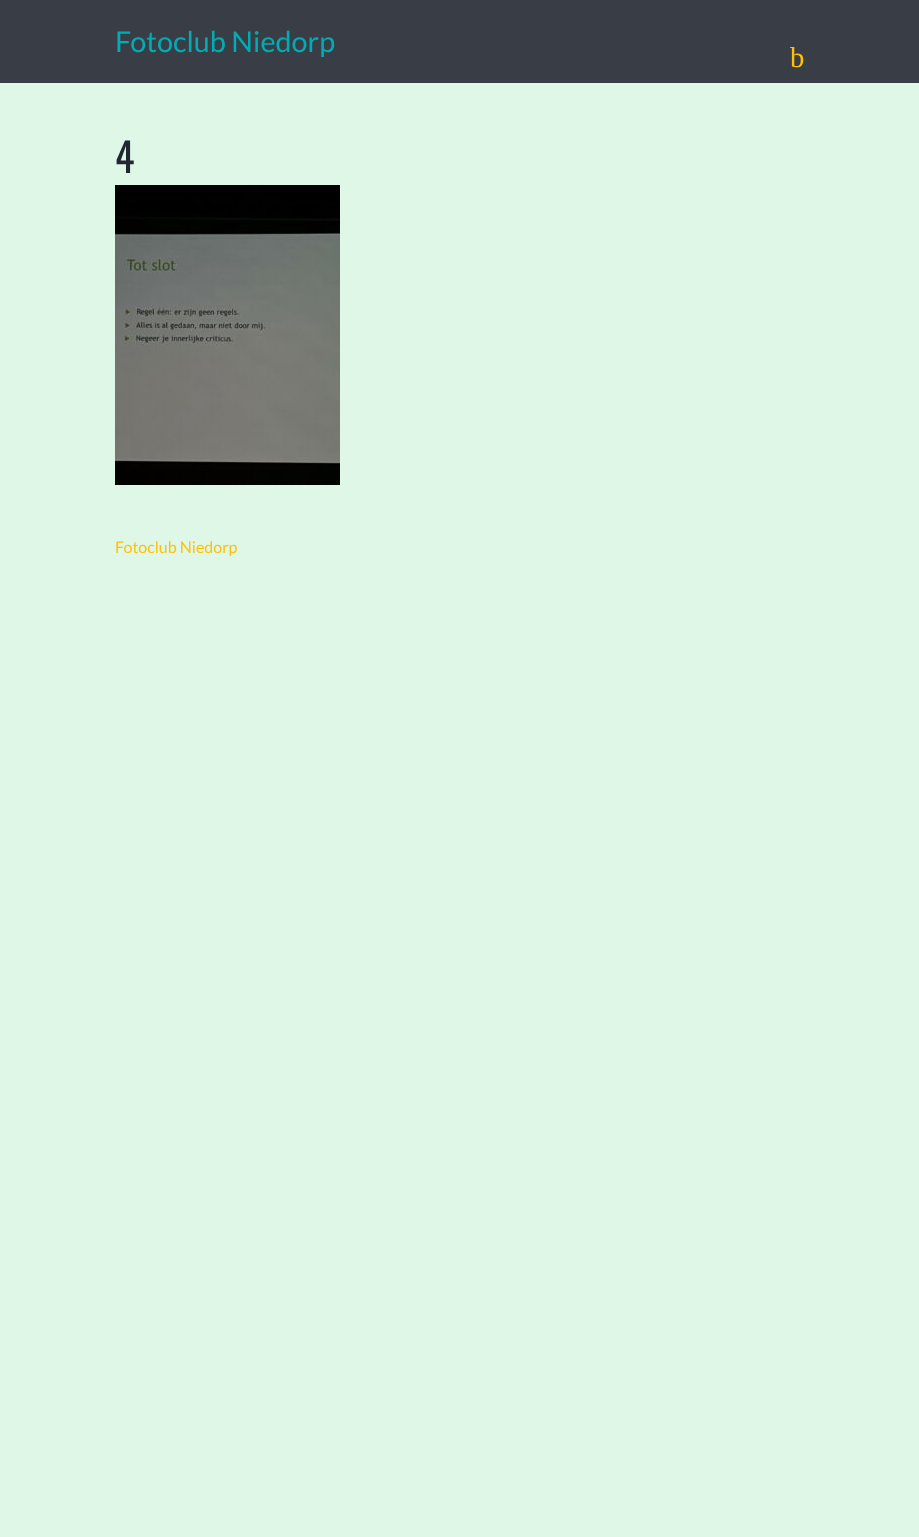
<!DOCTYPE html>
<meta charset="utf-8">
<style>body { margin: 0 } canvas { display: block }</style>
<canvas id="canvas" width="919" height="1537"></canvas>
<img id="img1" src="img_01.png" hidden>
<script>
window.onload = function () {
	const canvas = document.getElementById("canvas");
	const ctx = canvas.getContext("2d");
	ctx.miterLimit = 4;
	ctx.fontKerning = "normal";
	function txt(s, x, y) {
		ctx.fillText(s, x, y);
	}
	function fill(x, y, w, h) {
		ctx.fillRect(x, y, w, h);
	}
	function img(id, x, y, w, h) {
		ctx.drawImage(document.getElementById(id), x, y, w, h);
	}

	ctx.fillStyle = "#DEF7E7";
	fill(0, 0, 919, 1537);
	ctx.fillStyle = "#393E46";
	fill(0, 0, 919, 83);
	img("img1", 115, 185, 225, 300);
	ctx.font = "28.75px Lato";
	ctx.fillStyle = "#00ADB5";
	txt("Fotoclub Niedorp", 115, 52);
	ctx.font = "28.75px Liberation Serif";
	ctx.fillStyle = "#FFC107";
	txt("b", 790, 67);
	ctx.font = "40px Oswald";
	ctx.fillStyle = "#222831";
	txt("4", 115, 173);
	ctx.font = "16px Lato";
	ctx.fillStyle = "#FFC107";
	txt("Fotoclub Niedorp", 115, 553);
};
</script>
